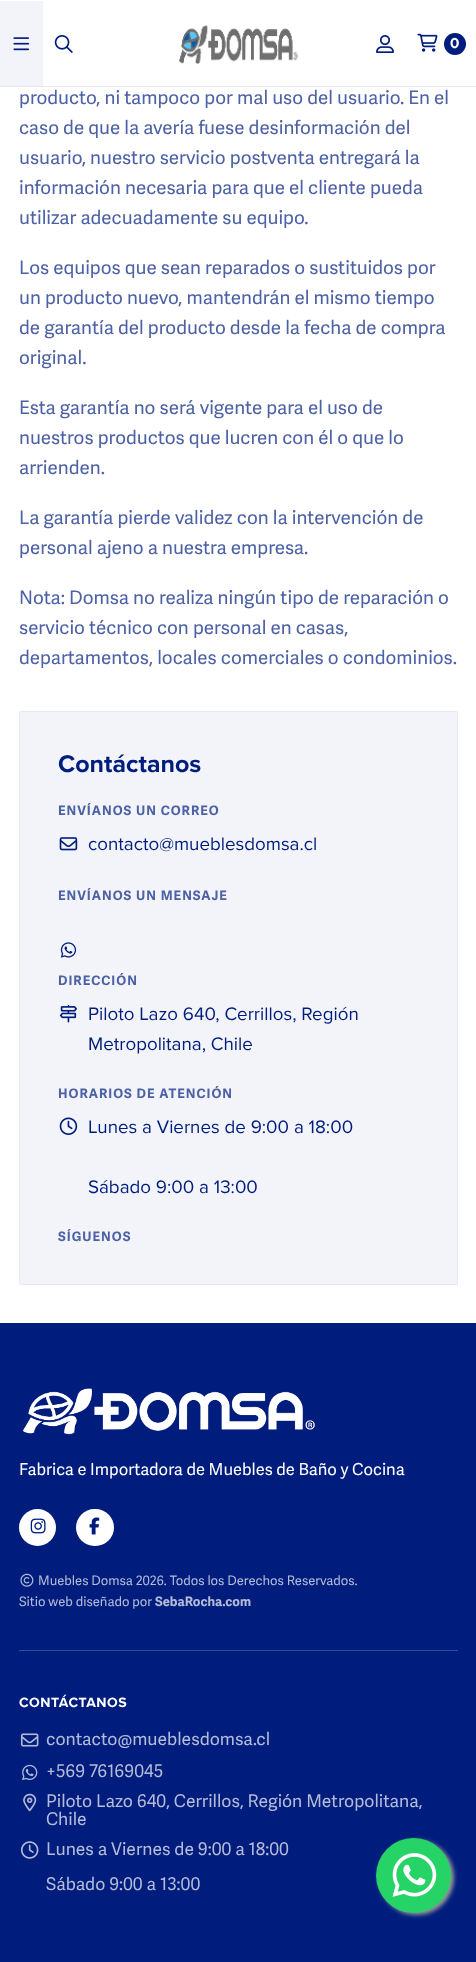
<!DOCTYPE html>
<meta charset="utf-8">
<style>body { margin: 0 } canvas { display: block }</style>
<canvas id="canvas" width="476" height="1962"></canvas>
<img id="img1" src="img_01.png" hidden>
<img id="img2" src="img_02.png" hidden>
<img id="img3" src="img_03.png" hidden>
<img id="img4" src="img_04.png" hidden>
<img id="img5" src="img_05.png" hidden>
<img id="img6" src="img_06.png" hidden>
<img id="img7" src="img_07.png" hidden>
<img id="img8" src="img_08.png" hidden>
<img id="img9" src="img_09.png" hidden>
<img id="img10" src="img_10.png" hidden>
<img id="img11" src="img_11.png" hidden>
<img id="img12" src="img_12.png" hidden>
<img id="img13" src="img_13.png" hidden>
<img id="img14" src="img_14.png" hidden>
<img id="img15" src="img_15.png" hidden>
<img id="img16" src="img_16.png" hidden>
<img id="img17" src="img_17.png" hidden>
<img id="img18" src="img_18.png" hidden>
<script>
window.onload = function () {
	const canvas = document.getElementById("canvas");
	const ctx = canvas.getContext("2d");
	ctx.miterLimit = 4;
	ctx.fontKerning = "normal";
	function txt(s, x, y) {
		ctx.fillText(s, x, y);
	}
	function fill(x, y, w, h) {
		ctx.fillRect(x, y, w, h);
	}
	function round(x, y, w, h, r) {
		ctx.beginPath();
		ctx.roundRect(x, y, w, h, r);
		ctx.fill();
	}
	function img(id, x, y, w, h) {
		ctx.drawImage(document.getElementById(id), x, y, w, h);
	}

	ctx.fillStyle = "#FFFFFF";
	fill(0, 0, 476, 1962);
	ctx.fillStyle = "#E6E8F2";
	fill(0, 86, 476, 1);
	ctx.fillStyle = "#F2F4F9";
	fill(0, 1, 43, 85);
	img("img1", 13, 37, 17, 14);
	img("img2", 54, 35, 19, 18);
	img("img3", 179, 25, 119, 40);
	img("img4", 376, 35, 18, 18);
	img("img5", 417, 33, 21, 19);
	ctx.fillStyle = "#001D7E";
	ctx.beginPath();
	ctx.arc(455, 44, 11, 0, Math.PI * 2);
	ctx.fill();
	ctx.fillStyle = "#F3F4F9";
	round(19, 711, 439, 574, 4);
	ctx.strokeStyle = "rgba(0, 29, 126, 0.05)";
	ctx.strokeRect(19.5, 711.5, 438, 573);
	img("img6", 59, 837, 19, 14);
	img("img7", 60, 942, 17, 16);
	img("img8", 59, 1005, 18, 18);
	img("img9", 59, 1117, 19, 18);
	ctx.fillStyle = "#001D7E";
	fill(0, 1323, 476, 639);
	img("img10", 23, 1388, 292, 47);
	ctx.fillStyle = "#FFFFFF";
	ctx.beginPath();
	ctx.arc(37.5, 1527.5, 18.5, 0, Math.PI * 2);
	ctx.fill();
	img("img11", 30, 1518, 16, 16);
	round(76, 1509, 38, 37, 18.5);
	img("img12", 89, 1517, 11, 18);
	img("img13", 20, 1573, 14, 14);
	ctx.fillStyle = "#334A98";
	fill(19, 1650, 439, 1);
	img("img14", 20, 1733, 19, 14);
	img("img15", 22, 1764, 16, 17);
	img("img16", 23, 1793, 14, 19);
	img("img17", 21, 1841, 18, 18);
	ctx.fillStyle = "#999999";
	ctx.filter = "blur(2px)";
	ctx.beginPath();
	ctx.roundRect(379, 1840, 75, 75, 37.5);
	ctx.fill();
	ctx.filter = "none";
	ctx.fillStyle = "#25D366";
	ctx.beginPath();
	ctx.arc(413.5, 1875.5, 37.5, 0, Math.PI * 2);
	ctx.fill();
	img("img18", 392, 1853, 45, 44);
	ctx.font = "bold 15px Proxima Nova";
	ctx.fillStyle = "#FFFFFF";
	txt("0", 450, 48);
	ctx.font = "18.75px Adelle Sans";
	ctx.fillStyle = "#4D61A5";
	txt("producto, ni tampoco por mal uso del usuario. En el", 19, 104);
	txt("caso de que la avería fuese desinformación del", 19, 134);
	txt("usuario, nuestro servicio postventa entregará la", 19, 164);
	txt("información necesaria para que el cliente pueda", 19, 194);
	txt("utilizar adecuadamente su equipo.", 19, 224);
	txt("Los equipos que sean reparados o sustituidos por", 19, 274);
	txt("un producto nuevo, mantendrán el mismo tiempo", 19, 304);
	txt("de garantía del producto desde la fecha de compra", 19, 334);
	txt("original.", 19, 364);
	txt("Esta garantía no será vigente para el uso de", 19, 414);
	txt("nuestros productos que lucren con él o que lo", 19, 444);
	txt("arrienden.", 19, 474);
	txt("La garantía pierde validez con la intervención de", 19, 524);
	txt("personal ajeno a nuestra empresa.", 19, 554);
	txt("Nota: Domsa no realiza ningún tipo de reparación o", 19, 604);
	txt("servicio técnico con personal en casas,", 19, 634);
	txt("departamentos, locales comerciales o condominios.", 19, 664);
	ctx.font = "bold 25px Proxima Nova";
	ctx.fillStyle = "#001D7E";
	txt("Contáctanos", 58, 772);
	ctx.letterSpacing = "1px";
	ctx.font = "bold 13px Adelle Sans";
	ctx.fillStyle = "#4D61A5";
	txt("ENVÍANOS UN CORREO", 58, 815);
	ctx.letterSpacing = "0px";
	ctx.font = "18.75px Proxima Nova";
	ctx.fillStyle = "#001D7E";
	txt("contacto@mueblesdomsa.cl", 88, 850);
	ctx.letterSpacing = "1px";
	ctx.font = "bold 13px Adelle Sans";
	ctx.fillStyle = "#4D61A5";
	txt("ENVÍANOS UN MENSAJE", 58, 900);
	txt("DIRECCIÓN", 58, 985);
	ctx.letterSpacing = "0px";
	ctx.font = "18.75px Proxima Nova";
	ctx.fillStyle = "#001D7E";
	txt("Piloto Lazo 640, Cerrillos, Región", 88, 1020);
	txt("Metropolitana, Chile", 88, 1050);
	ctx.letterSpacing = "1px";
	ctx.font = "bold 13px Adelle Sans";
	ctx.fillStyle = "#4D61A5";
	txt("HORARIOS DE ATENCIÓN", 58, 1098);
	ctx.letterSpacing = "0px";
	ctx.font = "18.75px Proxima Nova";
	ctx.fillStyle = "#001D7E";
	txt("Lunes a Viernes de 9:00 a 18:00", 88, 1133);
	txt("Sábado 9:00 a 13:00", 88, 1193);
	ctx.letterSpacing = "1px";
	ctx.font = "bold 13px Adelle Sans";
	ctx.fillStyle = "#4D61A5";
	txt("SÍGUENOS", 58, 1241);
	ctx.letterSpacing = "0px";
	ctx.font = "16.5px Adelle Sans";
	ctx.fillStyle = "#FFFFFF";
	txt("Fabrica e Importadora de Muebles de Baño y Cocina", 19, 1475);
	ctx.font = "13px Adelle Sans";
	ctx.fillStyle = "#B3BBD8";
	txt("Muebles Domsa 2026. Todos los Derechos Reservados.", 38, 1585);
	txt("Sitio web diseñado por", 19, 1606);
	ctx.font = "bold 13px Adelle Sans";
	txt("SebaRocha.com", 155, 1606);
	ctx.letterSpacing = "0.5px";
	ctx.font = "bold 14px Proxima Nova";
	ctx.fillStyle = "#FFFFFF";
	txt("CONTÁCTANOS", 19, 1707);
	ctx.letterSpacing = "0px";
	ctx.font = "17.5px Adelle Sans";
	ctx.fillStyle = "#B3BBD8";
	txt("contacto@mueblesdomsa.cl", 46, 1745);
	txt("+569 76169045", 46, 1777);
	txt("Piloto Lazo 640, Cerrillos, Región Metropolitana,", 46, 1807);
	txt("Chile", 46, 1825);
	txt("Lunes a Viernes de 9:00 a 18:00", 46, 1855);
	txt("Sábado 9:00 a 13:00", 46, 1890);
};
</script>
